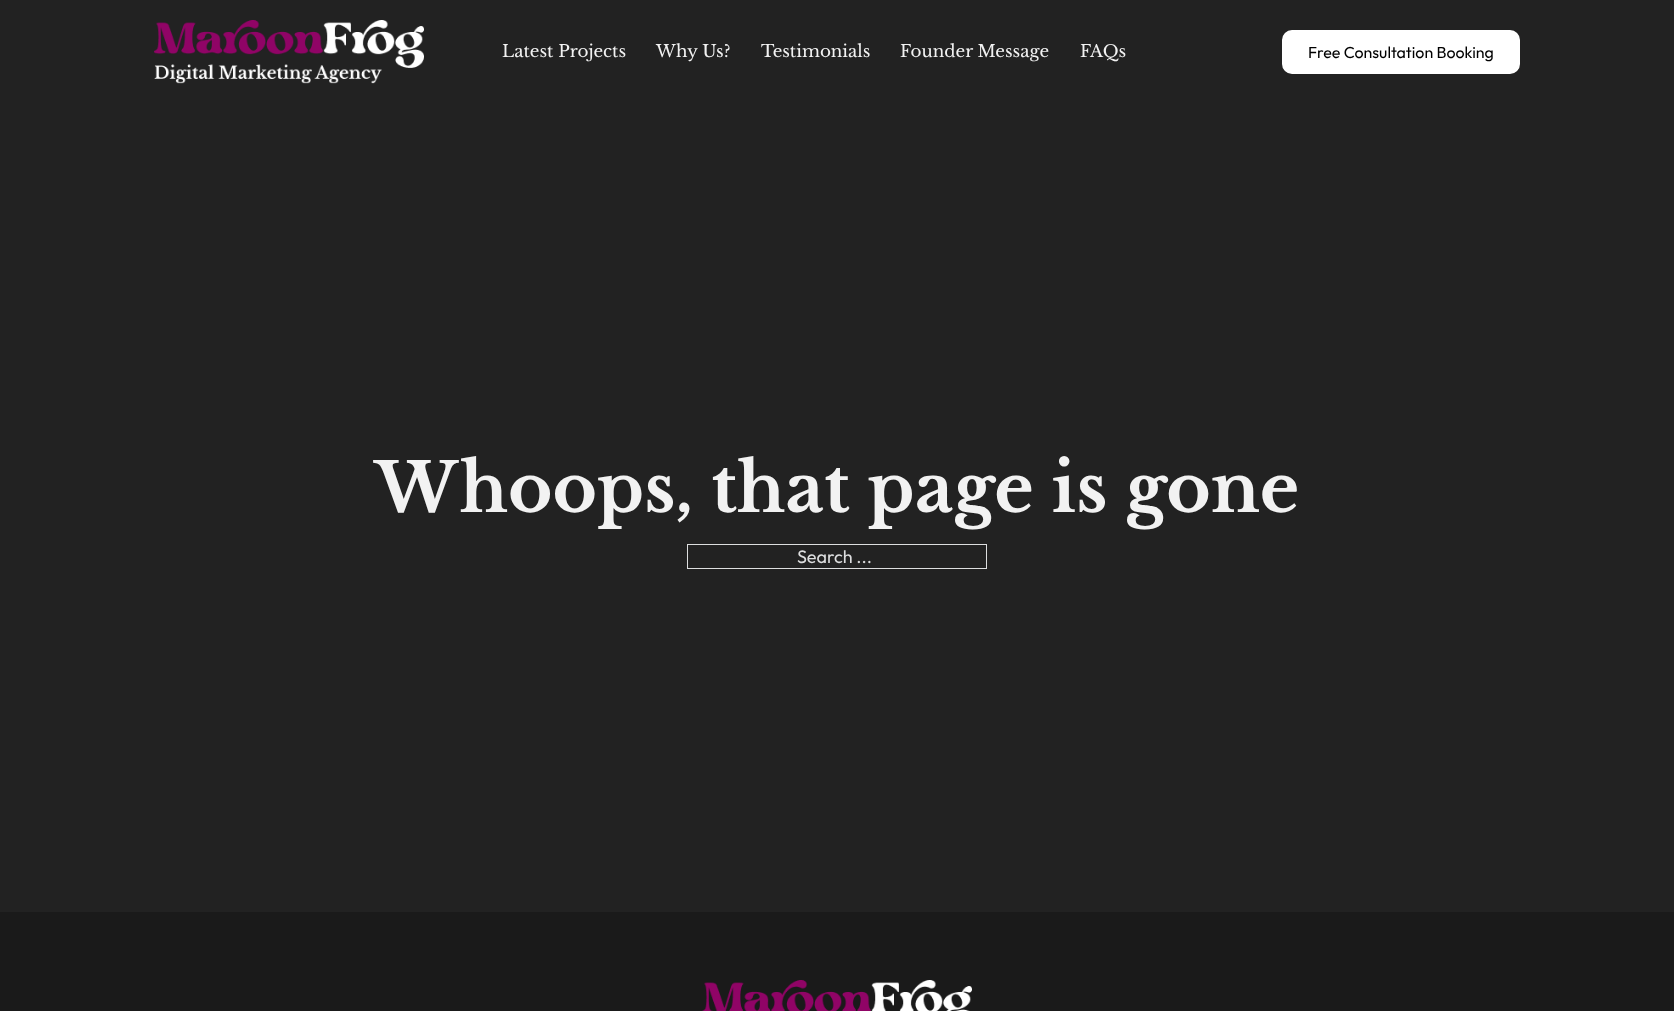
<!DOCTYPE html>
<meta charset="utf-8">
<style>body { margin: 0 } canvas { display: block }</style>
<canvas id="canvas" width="1674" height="1011"></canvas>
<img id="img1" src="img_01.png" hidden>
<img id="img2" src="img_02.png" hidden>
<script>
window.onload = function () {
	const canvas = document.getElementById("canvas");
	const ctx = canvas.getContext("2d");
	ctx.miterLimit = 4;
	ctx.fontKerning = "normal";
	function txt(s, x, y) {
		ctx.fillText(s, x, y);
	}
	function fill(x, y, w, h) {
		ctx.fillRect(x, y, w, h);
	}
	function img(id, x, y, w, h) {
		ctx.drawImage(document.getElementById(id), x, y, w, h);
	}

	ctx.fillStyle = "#222222";
	fill(0, 0, 1674, 1011);
	img("img1", 154, 20, 270, 64);
	ctx.fillStyle = "#FFFFFF";
	ctx.beginPath();
	ctx.roundRect(1283, 31, 236, 42, 9);
	ctx.fill();
	ctx.strokeStyle = "#FFFFFF";
	ctx.lineWidth = 2;
	ctx.stroke();
	ctx.strokeStyle = "#DDDEDF";
	ctx.lineWidth = 1;
	ctx.strokeRect(687.5, 544.5, 299, 24);
	ctx.fillStyle = "#1A1A1A";
	fill(0, 912, 1674, 99);
	img("img2", 702, 980, 270, 31);
	ctx.font = "16.75px Libre Baskerville";
	ctx.fillStyle = "#F2F2F2";
	txt("Latest Projects", 502, 57);
	txt("Why Us?", 656, 57);
	txt("Testimonials", 761, 57);
	txt("Founder Message", 900, 57);
	txt("FAQs", 1080, 57);
	ctx.font = "16px Outfit";
	ctx.fillStyle = "#000000";
	txt("Free Consultation Booking", 1308, 58);
	ctx.font = "bold 67.5px Libre Baskerville";
	ctx.fillStyle = "#F2F2F2";
	txt("Whoops, that page is gone", 375, 512);
	ctx.font = "18px Outfit";
	ctx.fillStyle = "#DDDEDF";
	txt("Search ...", 797, 563);
};
</script>
